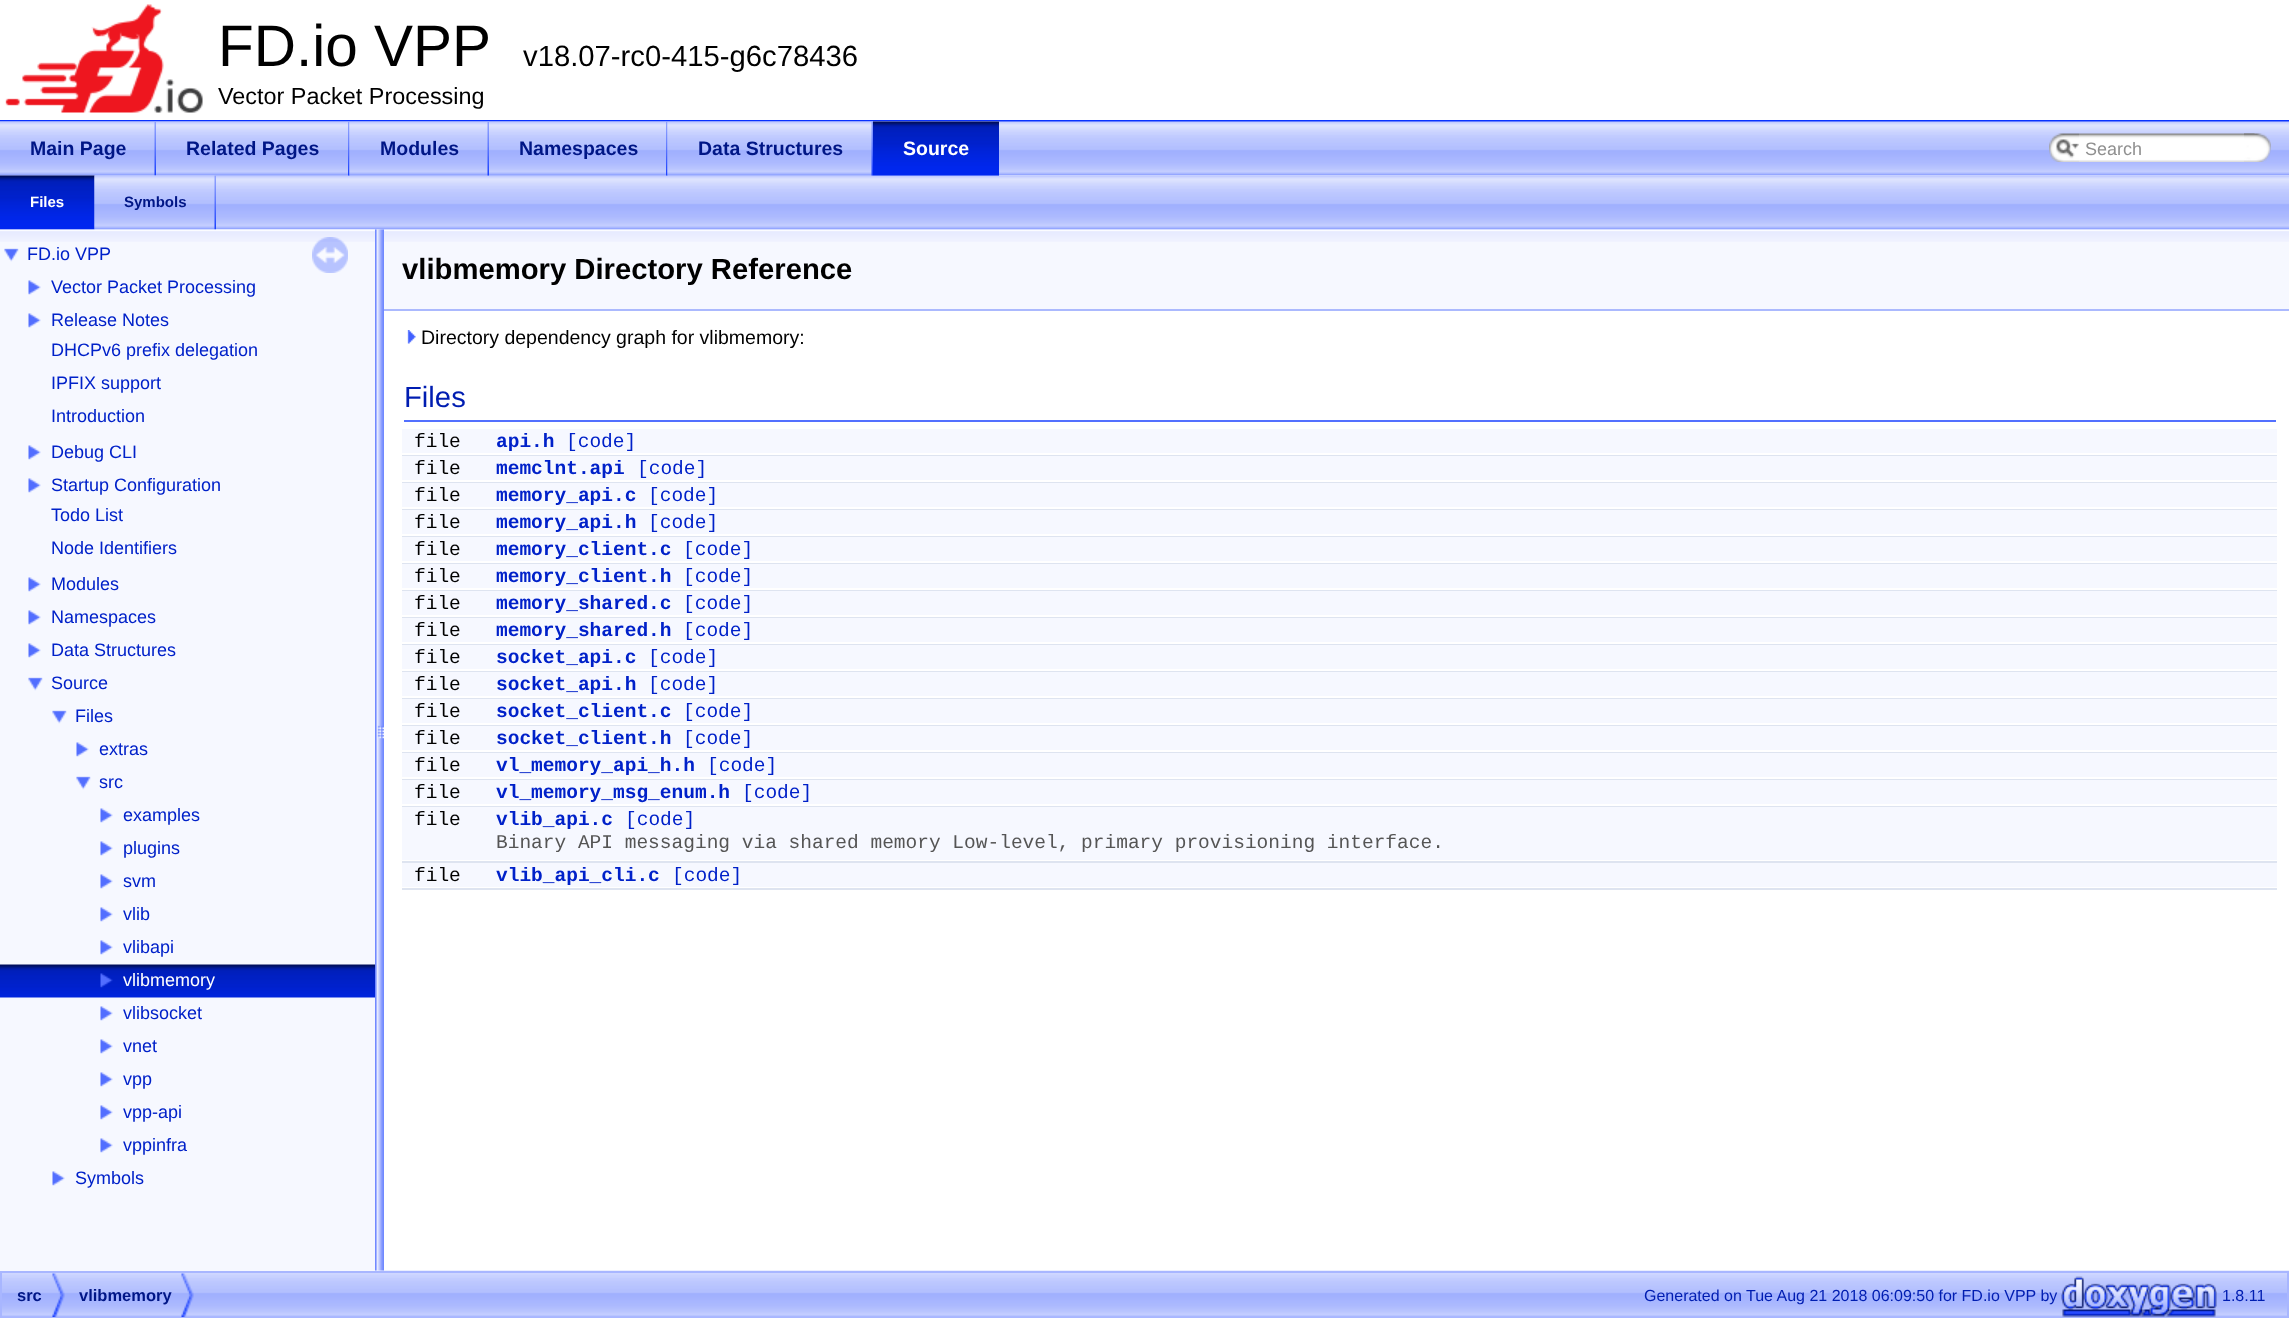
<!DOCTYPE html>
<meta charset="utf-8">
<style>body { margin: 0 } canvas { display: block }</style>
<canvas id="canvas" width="2289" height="1318"></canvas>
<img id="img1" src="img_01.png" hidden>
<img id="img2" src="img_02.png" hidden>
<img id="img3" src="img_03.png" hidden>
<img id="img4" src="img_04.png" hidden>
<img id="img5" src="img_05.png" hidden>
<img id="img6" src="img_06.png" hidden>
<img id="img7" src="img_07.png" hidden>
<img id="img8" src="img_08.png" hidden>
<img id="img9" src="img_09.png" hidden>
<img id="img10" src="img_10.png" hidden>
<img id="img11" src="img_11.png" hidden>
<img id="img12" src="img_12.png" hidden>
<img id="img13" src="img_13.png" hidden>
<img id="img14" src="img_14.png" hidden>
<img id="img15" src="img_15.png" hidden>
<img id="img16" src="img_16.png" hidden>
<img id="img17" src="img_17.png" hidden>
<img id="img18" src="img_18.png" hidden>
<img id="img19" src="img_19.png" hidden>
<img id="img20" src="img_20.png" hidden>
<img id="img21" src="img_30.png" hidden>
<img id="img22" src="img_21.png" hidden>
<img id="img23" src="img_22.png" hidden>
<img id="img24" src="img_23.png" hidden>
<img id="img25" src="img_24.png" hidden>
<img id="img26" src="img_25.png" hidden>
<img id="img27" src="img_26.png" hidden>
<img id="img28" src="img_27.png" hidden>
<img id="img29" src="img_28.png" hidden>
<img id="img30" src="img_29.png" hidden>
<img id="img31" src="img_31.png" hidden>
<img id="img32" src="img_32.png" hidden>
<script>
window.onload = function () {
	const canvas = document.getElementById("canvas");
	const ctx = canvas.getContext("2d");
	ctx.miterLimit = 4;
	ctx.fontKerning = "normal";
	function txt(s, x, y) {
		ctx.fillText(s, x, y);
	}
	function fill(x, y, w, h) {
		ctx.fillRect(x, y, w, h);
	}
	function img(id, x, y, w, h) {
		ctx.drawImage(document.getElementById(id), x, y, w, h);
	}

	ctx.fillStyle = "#FFFFFF";
	fill(0, 0, 2289, 1318);
	ctx.fillStyle = "#0932FF";
	fill(0, 120, 2289, 2);
	img("img1", 5, 4, 198, 109);
	img("img2", 0, 121, 2289, 55);
	img("img3", 0, 121, 156, 55);
	img("img4", 154, 122, 2, 54);
	img("img5", 156, 121, 194, 55);
	img("img6", 348, 121, 2, 55);
	img("img7", 349, 121, 140, 55);
	img("img4", 487, 122, 2, 54);
	img("img8", 489, 121, 179, 55);
	img("img6", 666, 121, 2, 55);
	img("img9", 667, 121, 206, 55);
	img("img4", 871, 122, 2, 54);
	img("img10", 873, 121, 126, 55);
	img("img11", 873, 121, 126, 55);
	img("img12", 2049, 133, 30, 29);
	img("img13", 2056, 139, 23, 19);
	img("img14", 2079, 133, 176, 29);
	img("img15", 2244, 133, 27, 29);
	img("img16", 0, 176, 2289, 54);
	img("img17", 0, 175, 95, 55);
	img("img18", 0, 175, 95, 55);
	img("img19", 94, 175, 122, 55);
	img("img20", 214, 175, 2, 55);
	img("img21", 2, 1270, 2287, 47);
	ctx.fillStyle = "#F6F8FF";
	fill(0, 242, 375, 1029);
	img("img22", 0, 229, 375, 13);
	img("img23", 4, 248, 15, 14);
	img("img24", 28, 280, 13, 15);
	img("img24", 28, 313, 13, 15);
	img("img24", 28, 445, 13, 15);
	img("img24", 28, 478, 13, 15);
	img("img24", 28, 577, 13, 15);
	img("img24", 28, 610, 13, 15);
	img("img24", 28, 643, 13, 15);
	img("img23", 28, 677, 15, 14);
	img("img23", 52, 710, 15, 14);
	img("img24", 76, 742, 13, 15);
	img("img23", 76, 776, 15, 14);
	img("img24", 100, 808, 13, 15);
	img("img24", 100, 841, 13, 15);
	img("img24", 100, 874, 13, 15);
	img("img24", 100, 907, 13, 15);
	img("img24", 100, 940, 13, 15);
	img("img25", 0, 964, 375, 34);
	img("img26", 100, 973, 13, 15);
	img("img24", 100, 1006, 13, 15);
	img("img24", 100, 1039, 13, 15);
	img("img24", 100, 1072, 13, 15);
	img("img24", 100, 1105, 13, 15);
	img("img24", 100, 1138, 13, 15);
	img("img24", 52, 1171, 13, 15);
	img("img27", 312, 237, 36, 36);
	img("img28", 375, 229, 9, 1042);
	fill(384, 242, 1905, 67);
	img("img29", 384, 229, 1905, 13);
	ctx.fillStyle = "#ABB9FE";
	fill(384, 309, 1905, 2);
	img("img30", 407, 330, 9, 14);
	ctx.fillStyle = "#5370FF";
	fill(404, 420, 1872, 2);
	ctx.fillStyle = "#F6F8FF";
	fill(402, 429, 1875, 24);
	ctx.fillStyle = "#DEE4F0";
	fill(402, 455, 1875, 1);
	ctx.fillStyle = "#F6F8FF";
	fill(402, 456, 1875, 24);
	ctx.fillStyle = "#DEE4F0";
	fill(402, 482, 1875, 1);
	ctx.fillStyle = "#F6F8FF";
	fill(402, 483, 1875, 24);
	ctx.fillStyle = "#DEE4F0";
	fill(402, 509, 1875, 1);
	ctx.fillStyle = "#F6F8FF";
	fill(402, 510, 1875, 24);
	ctx.fillStyle = "#DEE4F0";
	fill(402, 536, 1875, 1);
	ctx.fillStyle = "#F6F8FF";
	fill(402, 537, 1875, 24);
	ctx.fillStyle = "#DEE4F0";
	fill(402, 563, 1875, 1);
	ctx.fillStyle = "#F6F8FF";
	fill(402, 564, 1875, 24);
	ctx.fillStyle = "#DEE4F0";
	fill(402, 590, 1875, 1);
	ctx.fillStyle = "#F6F8FF";
	fill(402, 591, 1875, 24);
	ctx.fillStyle = "#DEE4F0";
	fill(402, 617, 1875, 1);
	ctx.fillStyle = "#F6F8FF";
	fill(402, 618, 1875, 24);
	ctx.fillStyle = "#DEE4F0";
	fill(402, 644, 1875, 1);
	ctx.fillStyle = "#F6F8FF";
	fill(402, 645, 1875, 24);
	ctx.fillStyle = "#DEE4F0";
	fill(402, 671, 1875, 1);
	ctx.fillStyle = "#F6F8FF";
	fill(402, 672, 1875, 24);
	ctx.fillStyle = "#DEE4F0";
	fill(402, 698, 1875, 1);
	ctx.fillStyle = "#F6F8FF";
	fill(402, 699, 1875, 24);
	ctx.fillStyle = "#DEE4F0";
	fill(402, 725, 1875, 1);
	ctx.fillStyle = "#F6F8FF";
	fill(402, 726, 1875, 24);
	ctx.fillStyle = "#DEE4F0";
	fill(402, 752, 1875, 1);
	ctx.fillStyle = "#F6F8FF";
	fill(402, 753, 1875, 24);
	ctx.fillStyle = "#DEE4F0";
	fill(402, 779, 1875, 1);
	ctx.fillStyle = "#F6F8FF";
	fill(402, 780, 1875, 24);
	ctx.fillStyle = "#DEE4F0";
	fill(402, 806, 1875, 1);
	ctx.fillStyle = "#F6F8FF";
	fill(402, 807, 1875, 24);
	fill(402, 831, 1875, 29);
	ctx.fillStyle = "#DEE4F0";
	fill(402, 861, 1875, 2);
	ctx.fillStyle = "#F6F8FF";
	fill(402, 863, 1875, 24);
	ctx.fillStyle = "#DEE4F0";
	fill(402, 888, 1875, 2);
	ctx.strokeStyle = "#A8B6FF";
	ctx.lineWidth = 2;
	ctx.strokeRect(1, 1272, 2287, 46);
	img("img31", 52, 1273, 13, 44);
	img("img31", 181, 1273, 13, 44);
	img("img32", 2061, 1276, 156, 41);
	ctx.font = "58.5px Liberation Sans";
	ctx.fillStyle = "#000000";
	txt("FD.io VPP", 218, 66);
	ctx.font = "29.25px Liberation Sans";
	txt("v18.07-rc0-415-g6c78436", 523, 66);
	ctx.font = "23.4px Liberation Sans";
	txt("Vector Packet Processing", 218, 104);
	ctx.font = "bold 19.5px Liberation Sans";
	ctx.fillStyle = "#001686";
	txt("Main Page", 30, 155);
	txt("Related Pages", 186, 155);
	txt("Modules", 380, 155);
	txt("Namespaces", 519, 155);
	txt("Data Structures", 698, 155);
	ctx.fillStyle = "#FFFFFF";
	txt("Source", 903, 155);
	ctx.font = "18px Liberation Sans";
	ctx.fillStyle = "#909090";
	txt("Search", 2085, 155);
	ctx.font = "bold 15px Liberation Sans";
	ctx.fillStyle = "#FFFFFF";
	txt("Files", 30, 207);
	ctx.fillStyle = "#001686";
	txt("Symbols", 124, 207);
	ctx.font = "18px Liberation Sans";
	ctx.fillStyle = "#0021C9";
	txt("FD.io VPP", 27, 260);
	txt("Vector Packet Processing", 51, 293);
	txt("Release Notes", 51, 326);
	txt("DHCPv6 prefix delegation", 51, 356);
	txt("IPFIX support", 51, 389);
	txt("Introduction", 51, 422);
	txt("Debug CLI", 51, 458);
	txt("Startup Configuration", 51, 491);
	txt("Todo List", 51, 521);
	txt("Node Identifiers", 51, 554);
	txt("Modules", 51, 590);
	txt("Namespaces", 51, 623);
	txt("Data Structures", 51, 656);
	txt("Source", 51, 689);
	txt("Files", 75, 722);
	txt("extras", 99, 755);
	txt("src", 99, 788);
	txt("examples", 123, 821);
	txt("plugins", 123, 854);
	txt("svm", 123, 887);
	txt("vlib", 123, 920);
	txt("vlibapi", 123, 953);
	ctx.fillStyle = "#FFFFFF";
	txt("vlibmemory", 123, 986);
	ctx.fillStyle = "#0021C9";
	txt("vlibsocket", 123, 1019);
	txt("vnet", 123, 1052);
	txt("vpp", 123, 1085);
	txt("vpp-api", 123, 1118);
	txt("vppinfra", 123, 1151);
	txt("Symbols", 75, 1184);
	ctx.font = "bold 29.25px Liberation Sans";
	ctx.fillStyle = "#000000";
	txt("vlibmemory Directory Reference", 402, 279);
	ctx.font = "19.5px Liberation Sans";
	txt("Directory dependency graph for vlibmemory:", 421, 344);
	ctx.font = "29.25px Liberation Sans";
	ctx.fillStyle = "#001DB1";
	txt("Files", 404, 407);
	ctx.font = "19.5px Liberation Mono";
	ctx.fillStyle = "#000000";
	txt("file", 414, 447);
	ctx.font = "bold 19.5px Liberation Mono";
	ctx.fillStyle = "#0021C9";
	txt("api.h", 496, 447);
	ctx.font = "19.5px Liberation Mono";
	txt("[code]", 566, 447);
	ctx.fillStyle = "#000000";
	txt("file", 414, 474);
	ctx.font = "bold 19.5px Liberation Mono";
	ctx.fillStyle = "#0021C9";
	txt("memclnt.api", 496, 474);
	ctx.font = "19.5px Liberation Mono";
	txt("[code]", 637, 474);
	ctx.fillStyle = "#000000";
	txt("file", 414, 501);
	ctx.font = "bold 19.5px Liberation Mono";
	ctx.fillStyle = "#0021C9";
	txt("memory_api.c", 496, 501);
	ctx.font = "19.5px Liberation Mono";
	txt("[code]", 648, 501);
	ctx.fillStyle = "#000000";
	txt("file", 414, 528);
	ctx.font = "bold 19.5px Liberation Mono";
	ctx.fillStyle = "#0021C9";
	txt("memory_api.h", 496, 528);
	ctx.font = "19.5px Liberation Mono";
	txt("[code]", 648, 528);
	ctx.fillStyle = "#000000";
	txt("file", 414, 555);
	ctx.font = "bold 19.5px Liberation Mono";
	ctx.fillStyle = "#0021C9";
	txt("memory_client.c", 496, 555);
	ctx.font = "19.5px Liberation Mono";
	txt("[code]", 683, 555);
	ctx.fillStyle = "#000000";
	txt("file", 414, 582);
	ctx.font = "bold 19.5px Liberation Mono";
	ctx.fillStyle = "#0021C9";
	txt("memory_client.h", 496, 582);
	ctx.font = "19.5px Liberation Mono";
	txt("[code]", 683, 582);
	ctx.fillStyle = "#000000";
	txt("file", 414, 609);
	ctx.font = "bold 19.5px Liberation Mono";
	ctx.fillStyle = "#0021C9";
	txt("memory_shared.c", 496, 609);
	ctx.font = "19.5px Liberation Mono";
	txt("[code]", 683, 609);
	ctx.fillStyle = "#000000";
	txt("file", 414, 636);
	ctx.font = "bold 19.5px Liberation Mono";
	ctx.fillStyle = "#0021C9";
	txt("memory_shared.h", 496, 636);
	ctx.font = "19.5px Liberation Mono";
	txt("[code]", 683, 636);
	ctx.fillStyle = "#000000";
	txt("file", 414, 663);
	ctx.font = "bold 19.5px Liberation Mono";
	ctx.fillStyle = "#0021C9";
	txt("socket_api.c", 496, 663);
	ctx.font = "19.5px Liberation Mono";
	txt("[code]", 648, 663);
	ctx.fillStyle = "#000000";
	txt("file", 414, 690);
	ctx.font = "bold 19.5px Liberation Mono";
	ctx.fillStyle = "#0021C9";
	txt("socket_api.h", 496, 690);
	ctx.font = "19.5px Liberation Mono";
	txt("[code]", 648, 690);
	ctx.fillStyle = "#000000";
	txt("file", 414, 717);
	ctx.font = "bold 19.5px Liberation Mono";
	ctx.fillStyle = "#0021C9";
	txt("socket_client.c", 496, 717);
	ctx.font = "19.5px Liberation Mono";
	txt("[code]", 683, 717);
	ctx.fillStyle = "#000000";
	txt("file", 414, 744);
	ctx.font = "bold 19.5px Liberation Mono";
	ctx.fillStyle = "#0021C9";
	txt("socket_client.h", 496, 744);
	ctx.font = "19.5px Liberation Mono";
	txt("[code]", 683, 744);
	ctx.fillStyle = "#000000";
	txt("file", 414, 771);
	ctx.font = "bold 19.5px Liberation Mono";
	ctx.fillStyle = "#0021C9";
	txt("vl_memory_api_h.h", 496, 771);
	ctx.font = "19.5px Liberation Mono";
	txt("[code]", 707, 771);
	ctx.fillStyle = "#000000";
	txt("file", 414, 798);
	ctx.font = "bold 19.5px Liberation Mono";
	ctx.fillStyle = "#0021C9";
	txt("vl_memory_msg_enum.h", 496, 798);
	ctx.font = "19.5px Liberation Mono";
	txt("[code]", 742, 798);
	ctx.fillStyle = "#000000";
	txt("file", 414, 825);
	ctx.font = "bold 19.5px Liberation Mono";
	ctx.fillStyle = "#0021C9";
	txt("vlib_api.c", 496, 825);
	ctx.font = "19.5px Liberation Mono";
	txt("[code]", 625, 825);
	ctx.fillStyle = "#555555";
	txt("Binary API messaging via shared memory Low-level, primary provisioning interface.", 496, 848);
	ctx.fillStyle = "#000000";
	txt("file", 414, 881);
	ctx.font = "bold 19.5px Liberation Mono";
	ctx.fillStyle = "#0021C9";
	txt("vlib_api_cli.c", 496, 881);
	ctx.font = "19.5px Liberation Mono";
	txt("[code]", 672, 881);
	ctx.font = "bold 16.5px Liberation Sans";
	ctx.fillStyle = "#001686";
	txt("src", 17, 1301);
	txt("vlibmemory", 79, 1301);
	ctx.font = "16px Liberation Sans";
	ctx.fillStyle = "#001DB1";
	txt("Generated on Tue Aug 21 2018 06:09:50 for FD.io VPP by", 1644, 1301);
	txt("1.8.11", 2222, 1301);
};
</script>
